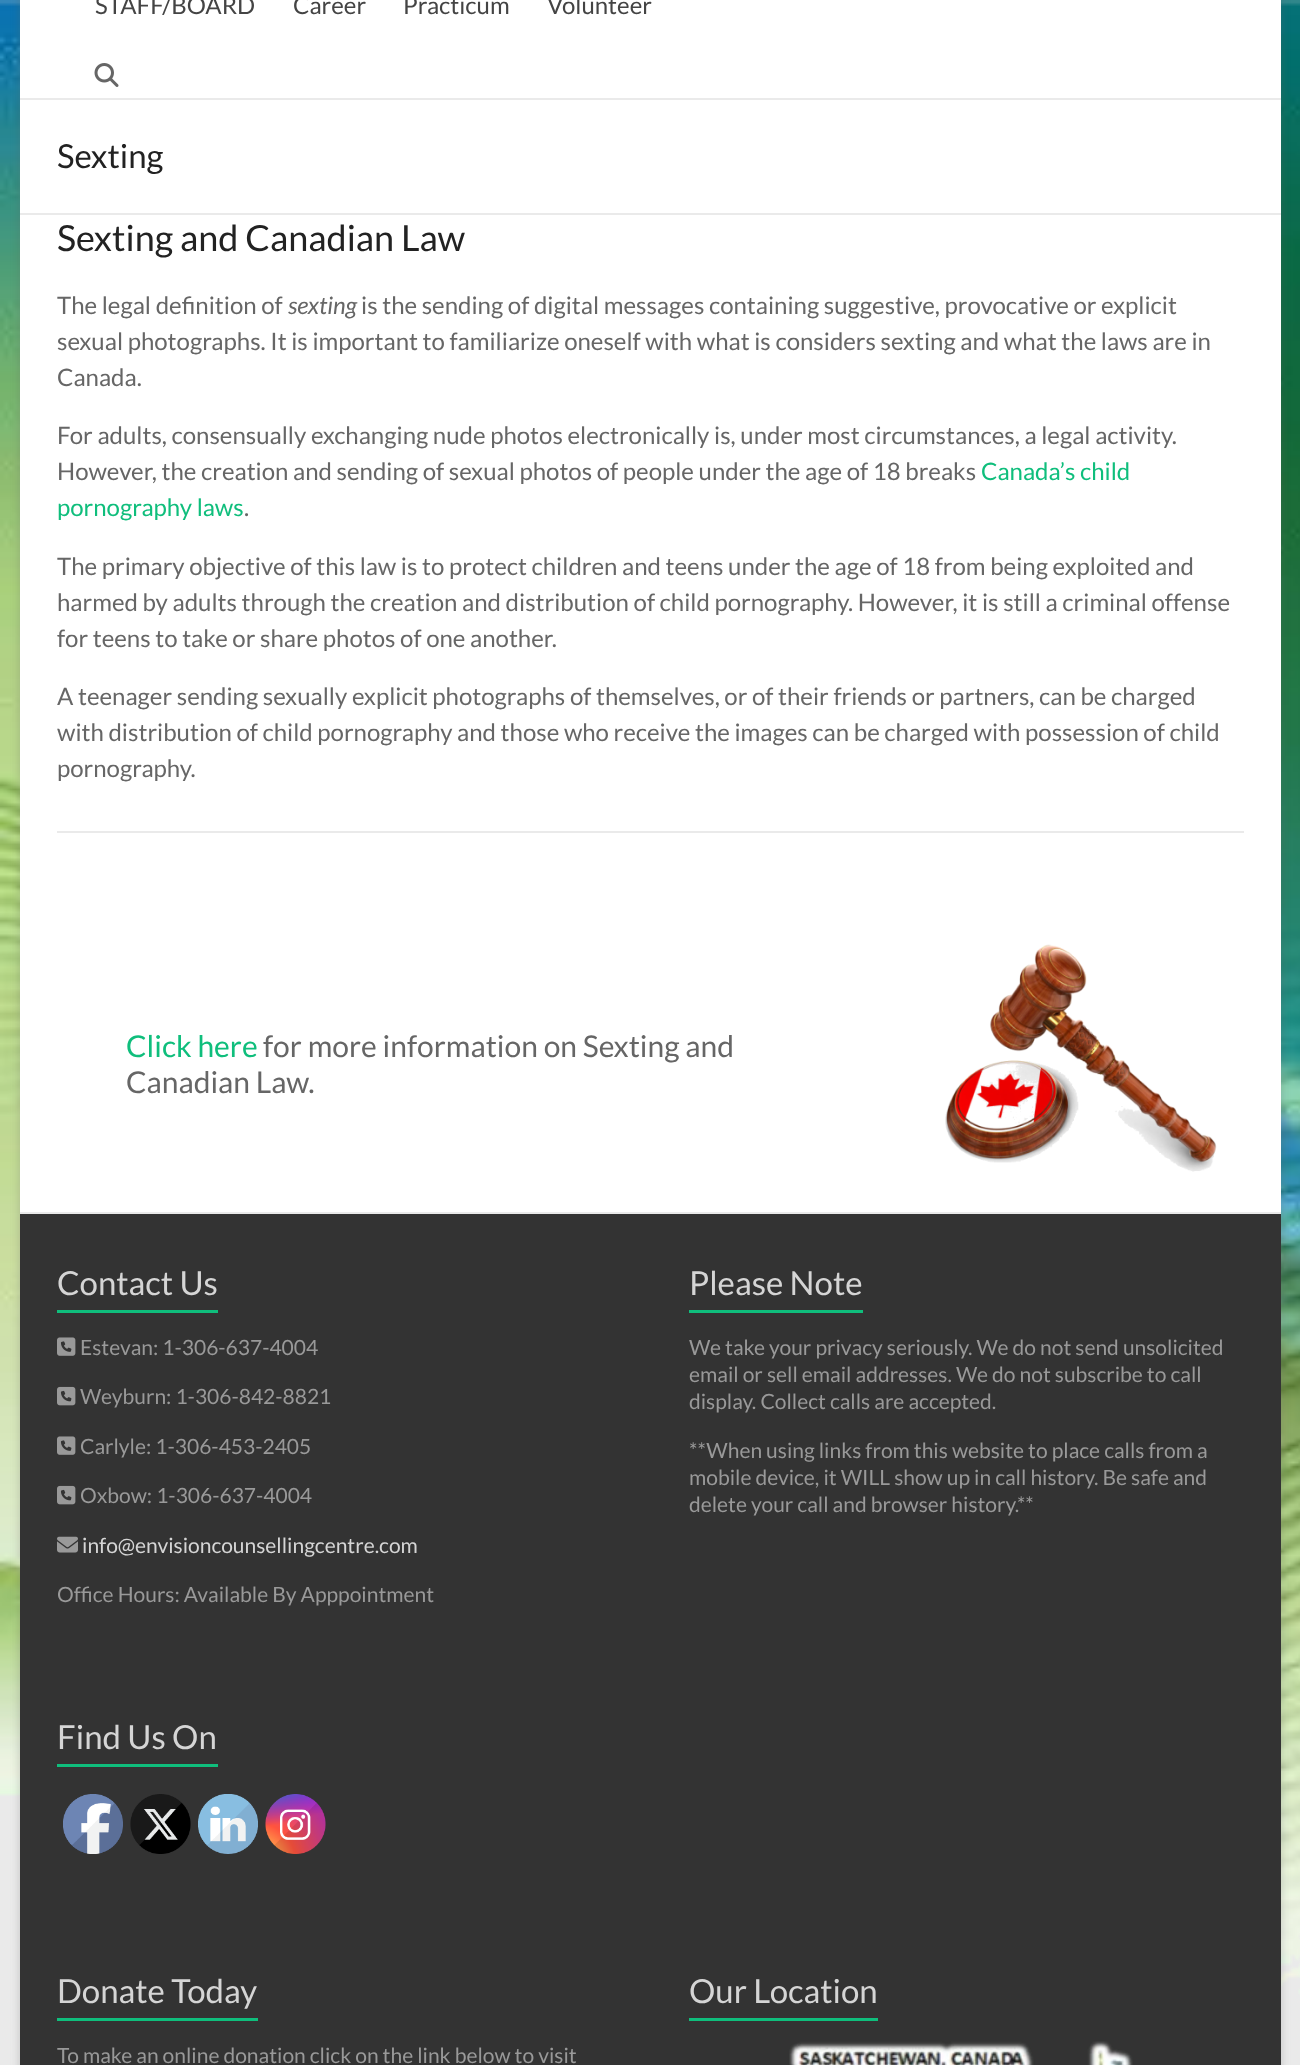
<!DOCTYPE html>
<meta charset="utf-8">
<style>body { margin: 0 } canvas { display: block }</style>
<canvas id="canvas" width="1300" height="2065"></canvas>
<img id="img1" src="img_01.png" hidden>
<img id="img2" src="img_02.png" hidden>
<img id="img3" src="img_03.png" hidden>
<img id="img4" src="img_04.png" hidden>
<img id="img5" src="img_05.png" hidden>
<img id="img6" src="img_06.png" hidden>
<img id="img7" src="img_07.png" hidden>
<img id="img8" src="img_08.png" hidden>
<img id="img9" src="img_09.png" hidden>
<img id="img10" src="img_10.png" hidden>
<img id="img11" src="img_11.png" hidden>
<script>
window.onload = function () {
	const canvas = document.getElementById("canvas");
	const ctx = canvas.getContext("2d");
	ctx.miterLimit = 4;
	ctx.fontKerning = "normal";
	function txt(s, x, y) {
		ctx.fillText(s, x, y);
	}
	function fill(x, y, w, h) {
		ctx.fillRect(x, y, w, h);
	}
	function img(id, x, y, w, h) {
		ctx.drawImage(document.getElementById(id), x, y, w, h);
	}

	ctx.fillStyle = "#EAEAEA";
	fill(0, 0, 1300, 2065);
	img("img1", 0, 0, 1300, 1996);
	ctx.fillStyle = "rgba(100, 100, 100, 0.3)";
	ctx.filter = "blur(4.5px)";
	ctx.beginPath();
	ctx.rect(20, -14, 1261, 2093);
	ctx.fill();
	ctx.filter = "none";
	ctx.fillStyle = "#FFFFFF";
	fill(20, 0, 1261, 1212);
	ctx.fillStyle = "#EAEAEA";
	fill(20, 98, 1261, 2);
	img("img2", 94, 63, 25, 24);
	fill(20, 213, 1261, 2);
	fill(57, 831, 1187, 2);
	img("img3", 945, 944, 272, 228);
	ctx.fillStyle = "#333333";
	fill(20, 1214, 1261, 851);
	ctx.fillStyle = "#EAEAEA";
	fill(20, 1212, 1261, 2);
	ctx.fillStyle = "#0FBE7C";
	fill(57, 1310, 161, 3);
	img("img4", 57, 1337, 19, 19);
	img("img5", 57, 1386, 19, 20);
	img("img4", 57, 1436, 19, 19);
	img("img5", 57, 1485, 19, 20);
	img("img6", 57, 1536, 21, 17);
	fill(57, 1764, 161, 3);
	img("img7", 63, 1794, 60, 60);
	img("img8", 130, 1794, 61, 60);
	img("img9", 198, 1794, 60, 60);
	img("img10", 265, 1794, 61, 60);
	fill(689, 1310, 174, 3);
	fill(57, 2018, 201, 3);
	fill(689, 2018, 189, 3);
	img("img11", 789, 2041, 344, 24);
	ctx.font = "24px Lato";
	ctx.fillStyle = "#444444";
	txt("STAFF/BOARD", 95, 14);
	txt("Career", 293, 14);
	txt("Practicum", 403, 14);
	txt("Volunteer", 547, 14);
	ctx.font = "33px Lato";
	ctx.fillStyle = "#222222";
	txt("Sexting", 57, 168);
	ctx.font = "36px Lato";
	txt("Sexting and Canadian Law", 57, 251);
	ctx.font = "24px Lato";
	ctx.fillStyle = "#666666";
	txt("The legal definition of", 57, 314);
	ctx.font = "italic 24px Lato";
	txt("sexting", 288, 314);
	ctx.font = "24px Lato";
	txt("is the sending of digital messages containing suggestive, provocative or explicit", 361, 314);
	txt("sexual photographs. It is important to familiarize oneself with what is considers sexting and what the laws are in", 57, 350);
	txt("Canada.", 57, 386);
	txt("For adults, consensually exchanging nude photos electronically is, under most circumstances, a legal activity.", 57, 444);
	txt("However, the creation and sending of sexual photos of people under the age of 18 breaks", 57, 480);
	ctx.fillStyle = "#0FBE7C";
	txt("Canada’s child", 981, 480);
	txt("pornography laws", 57, 516);
	ctx.fillStyle = "#666666";
	txt(".", 244, 516);
	txt("The primary objective of this law is to protect children and teens under the age of 18 from being exploited and", 57, 575);
	txt("harmed by adults through the creation and distribution of child pornography. However, it is still a criminal offense", 57, 611);
	txt("for teens to take or share photos of one another.", 57, 647);
	txt("A teenager sending sexually explicit photographs of themselves, or of their friends or partners, can be charged", 57, 705);
	txt("with distribution of child pornography and those who receive the images can be charged with possession of child", 57, 741);
	txt("pornography.", 57, 777);
	ctx.font = "30px Lato";
	ctx.fillStyle = "#0FBE7C";
	txt("Click here", 126, 1057);
	ctx.fillStyle = "#666666";
	txt("for more information on Sexting and", 263, 1057);
	txt("Canadian Law.", 126, 1093);
	ctx.font = "33px Lato";
	ctx.fillStyle = "#D5D5D5";
	txt("Contact Us", 57, 1295);
	ctx.font = "21px Lato";
	ctx.fillStyle = "#999999";
	txt("Estevan: 1-306-637-4004", 80, 1355);
	txt("Weyburn: 1-306-842-8821", 80, 1404);
	txt("Carlyle: 1-306-453-2405", 80, 1454);
	txt("Oxbow: 1-306-637-4004", 80, 1503);
	ctx.fillStyle = "#D5D5D5";
	txt("info@envisioncounsellingcentre.com", 82, 1553);
	ctx.fillStyle = "#999999";
	txt("Office Hours: Available By Apppointment", 57, 1602);
	ctx.font = "33px Lato";
	ctx.fillStyle = "#D5D5D5";
	txt("Find Us On", 57, 1749);
	txt("Please Note", 689, 1295);
	ctx.font = "21px Lato";
	ctx.fillStyle = "#999999";
	txt("We take your privacy seriously. We do not send unsolicited", 689, 1355);
	txt("email or sell email addresses. We do not subscribe to call", 689, 1382);
	txt("display. Collect calls are accepted.", 689, 1409);
	txt("**When using links from this website to place calls from a", 689, 1458);
	txt("mobile device, it WILL show up in call history. Be safe and", 689, 1485);
	txt("delete your call and browser history.**", 689, 1512);
	ctx.font = "33px Lato";
	ctx.fillStyle = "#D5D5D5";
	txt("Donate Today", 57, 2003);
	ctx.font = "21px Lato";
	ctx.fillStyle = "#999999";
	txt("To make an online donation click on the link below to visit", 57, 2063);
	ctx.font = "33px Lato";
	ctx.fillStyle = "#D5D5D5";
	txt("Our Location", 689, 2003);
};
</script>
